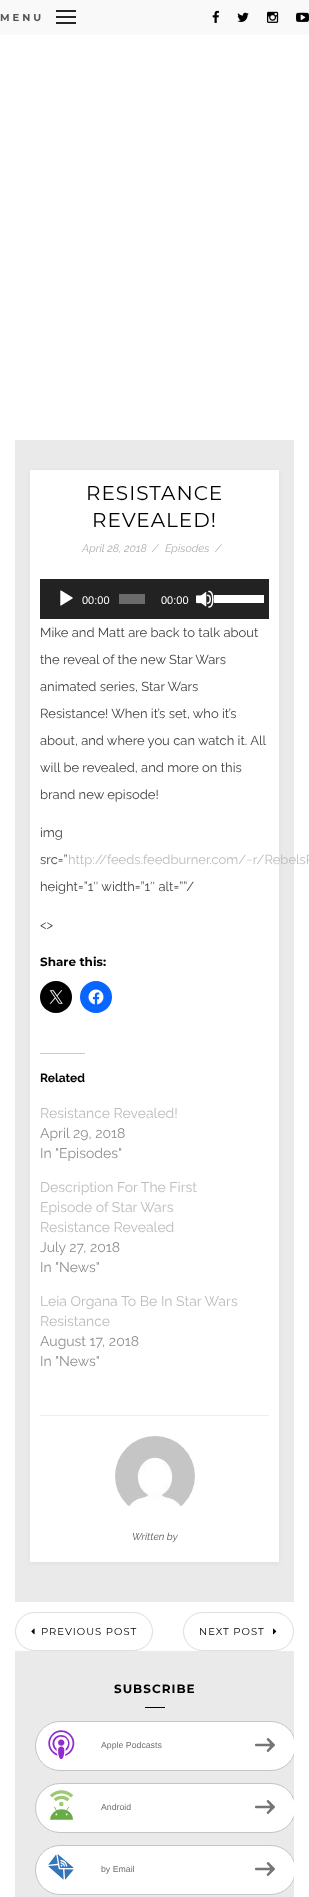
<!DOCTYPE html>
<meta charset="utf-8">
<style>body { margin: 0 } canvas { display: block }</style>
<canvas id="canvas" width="309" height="1897"></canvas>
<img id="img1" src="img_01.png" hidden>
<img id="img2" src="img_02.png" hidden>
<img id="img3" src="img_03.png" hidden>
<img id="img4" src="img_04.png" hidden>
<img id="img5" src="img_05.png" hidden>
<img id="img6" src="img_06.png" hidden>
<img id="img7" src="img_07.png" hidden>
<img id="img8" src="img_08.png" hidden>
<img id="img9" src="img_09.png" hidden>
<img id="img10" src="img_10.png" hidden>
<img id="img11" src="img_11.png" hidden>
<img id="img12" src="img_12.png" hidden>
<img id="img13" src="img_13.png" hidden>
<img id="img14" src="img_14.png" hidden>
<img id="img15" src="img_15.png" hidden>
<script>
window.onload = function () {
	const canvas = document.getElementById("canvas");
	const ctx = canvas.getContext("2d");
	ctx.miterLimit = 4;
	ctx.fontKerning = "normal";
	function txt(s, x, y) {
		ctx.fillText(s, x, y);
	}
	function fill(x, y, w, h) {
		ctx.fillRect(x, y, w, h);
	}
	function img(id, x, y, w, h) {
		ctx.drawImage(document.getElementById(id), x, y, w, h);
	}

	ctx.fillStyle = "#FFFFFF";
	fill(0, 0, 309, 1897);
	ctx.fillStyle = "#F9F9F9";
	fill(0, 0, 309, 35);
	ctx.fillStyle = "#242424";
	fill(56, 10, 20, 2);
	fill(56, 16, 20, 2);
	fill(56, 22, 20, 2);
	img("img1", 212, 10, 7, 13);
	img("img2", 237, 12, 12, 10);
	img("img3", 267, 11, 12, 12);
	img("img4", 296, 12, 13, 10);
	ctx.fillStyle = "#EAEAEA";
	fill(15, 440, 279, 1162);
	ctx.fillStyle = "rgba(0, 0, 0, 0.05)";
	ctx.filter = "blur(2.5px)";
	ctx.beginPath();
	ctx.rect(30, 471, 249, 1092);
	ctx.fill();
	ctx.filter = "none";
	ctx.fillStyle = "#FFFFFF";
	fill(30, 470, 249, 1092);
	ctx.fillStyle = "#222222";
	fill(40, 579, 229, 40);
	img("img5", 60, 590, 13, 16);
	ctx.fillStyle = "#6B6B6B";
	fill(119, 594, 26, 10);
	img("img6", 196, 590, 18, 18);
	ctx.fillStyle = "#FFFFFF";
	fill(214, 595, 50, 8);
	ctx.fillStyle = "#000000";
	ctx.beginPath();
	ctx.arc(56, 997, 16, 0, Math.PI * 2);
	ctx.fill();
	img("img7", 49, 990, 14, 14);
	ctx.fillStyle = "#0866FF";
	ctx.beginPath();
	ctx.arc(96, 997, 16, 0, Math.PI * 2);
	ctx.fill();
	img("img8", 88, 989, 16, 16);
	ctx.fillStyle = "#CCCCCC";
	fill(40, 1053, 45, 1);
	ctx.fillStyle = "#EEEEEE";
	fill(40, 1415, 229, 1);
	img("img9", 115, 1436, 80, 71);
	ctx.beginPath();
	ctx.roundRect(15.5, 1612.5, 137, 38, 19);
	ctx.strokeStyle = "#DDDDDD";
	ctx.stroke();
	img("img10", 31, 1628, 4, 7);
	ctx.beginPath();
	ctx.roundRect(183.5, 1612.5, 110, 38, 19);
	ctx.stroke();
	img("img11", 273, 1628, 4, 7);
	ctx.fillStyle = "#EAEAEA";
	fill(15, 1651, 279, 246);
	ctx.fillStyle = "#000000";
	fill(145, 1707, 20, 1);
	ctx.save();
	ctx.beginPath();
	ctx.rect(15, 1651, 279, 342);
	ctx.clip();
	ctx.fillStyle = "#FFFFFF";
	ctx.beginPath();
	ctx.roundRect(35.5, 1721.5, 260, 49, 24.5);
	ctx.fill();
	ctx.strokeStyle = "#C4C4C4";
	ctx.stroke();
	ctx.restore();
	img("img12", 48, 1730, 27, 29);
	img("img13", 255, 1738, 20, 14);
	ctx.save();
	ctx.beginPath();
	ctx.rect(15, 1651, 279, 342);
	ctx.clip();
	ctx.fillStyle = "#FFFFFF";
	ctx.beginPath();
	ctx.roundRect(35.5, 1783.5, 260, 49, 24.5);
	ctx.fill();
	ctx.strokeStyle = "#C4C4C4";
	ctx.stroke();
	ctx.restore();
	img("img14", 50, 1790, 24, 30);
	img("img13", 255, 1800, 20, 14);
	ctx.save();
	ctx.beginPath();
	ctx.rect(15, 1651, 279, 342);
	ctx.clip();
	ctx.fillStyle = "#FFFFFF";
	ctx.beginPath();
	ctx.roundRect(35.5, 1845.5, 260, 49, 24.5);
	ctx.fill();
	ctx.strokeStyle = "#C4C4C4";
	ctx.stroke();
	ctx.restore();
	img("img15", 48, 1854, 26, 26);
	img("img13", 255, 1862, 20, 14);
	ctx.letterSpacing = "3px";
	ctx.font = "bold 10px Montserrat";
	ctx.fillStyle = "#555555";
	txt("MENU", 0, 21);
	ctx.letterSpacing = "1px";
	ctx.font = "20px Montserrat";
	ctx.fillStyle = "#000000";
	txt("RESISTANCE", 86, 500);
	txt("REVEALED!", 92, 527);
	ctx.letterSpacing = "0px";
	ctx.font = "italic 11px Raleway";
	ctx.fillStyle = "#B1B1B1";
	txt("April 28, 2018", 82, 552);
	txt("/", 152, 552);
	txt("Episodes", 165, 552);
	txt("/", 215, 552);
	ctx.font = "11px Liberation Sans";
	ctx.fillStyle = "#FFFFFF";
	txt("00:00", 82, 604);
	txt("00:00", 161, 604);
	ctx.font = "13px Raleway";
	ctx.fillStyle = "#444444";
	txt("Mike and Matt are back to talk about", 40, 637);
	txt("the reveal of the new Star Wars", 40, 664);
	txt("animated series, Star Wars", 40, 691);
	txt("Resistance! When it’s set, who it’s", 40, 718);
	txt("about, and where you can watch it. All", 40, 745);
	txt("will be revealed, and more on this", 40, 772);
	txt("brand new episode!", 40, 799);
	txt("img", 40, 837);
	txt("src=”", 40, 864);
	ctx.fillStyle = "#BCBCBC";
	txt("http://feeds.feedburner.com/~r/RebelsP", 68, 864);
	ctx.fillStyle = "#444444";
	txt("height=”1″ width=”1″ alt=””/", 40, 891);
	txt("<>", 40, 929);
	ctx.font = "bold 12px Montserrat";
	ctx.fillStyle = "#000000";
	txt("Share this:", 40, 966);
	ctx.font = "bold 12px Raleway";
	txt("Related", 40, 1082);
	ctx.font = "14px Raleway";
	ctx.fillStyle = "#BCBCBC";
	txt("Resistance Revealed!", 40, 1118);
	ctx.fillStyle = "#8F8F8F";
	txt("April 29, 2018", 40, 1138);
	txt("In \"Episodes\"", 40, 1158);
	ctx.fillStyle = "#BCBCBC";
	txt("Description For The First", 40, 1192);
	txt("Episode of Star Wars", 40, 1212);
	txt("Resistance Revealed", 40, 1232);
	ctx.fillStyle = "#8F8F8F";
	txt("July 27, 2018", 40, 1252);
	txt("In \"News\"", 40, 1272);
	ctx.fillStyle = "#BCBCBC";
	txt("Leia Organa To Be In Star Wars", 40, 1306);
	txt("Resistance", 40, 1326);
	ctx.fillStyle = "#8F8F8F";
	txt("August 17, 2018", 40, 1346);
	txt("In \"News\"", 40, 1366);
	ctx.font = "italic 10px Raleway";
	ctx.fillStyle = "#555555";
	txt("Written by", 132, 1540);
	ctx.letterSpacing = "1px";
	ctx.font = "10px Montserrat";
	ctx.fillStyle = "#000000";
	txt("PREVIOUS POST", 41, 1635);
	txt("NEXT POST", 199, 1635);
	ctx.font = "bold 12px Montserrat";
	txt("SUBSCRIBE", 114, 1693);
	ctx.letterSpacing = "0px";
	ctx.font = "8.75px Liberation Sans";
	ctx.fillStyle = "#707070";
	txt("Apple Podcasts", 101, 1748);
	txt("Android", 101, 1810);
	txt("by Email", 101, 1872);
};
</script>
